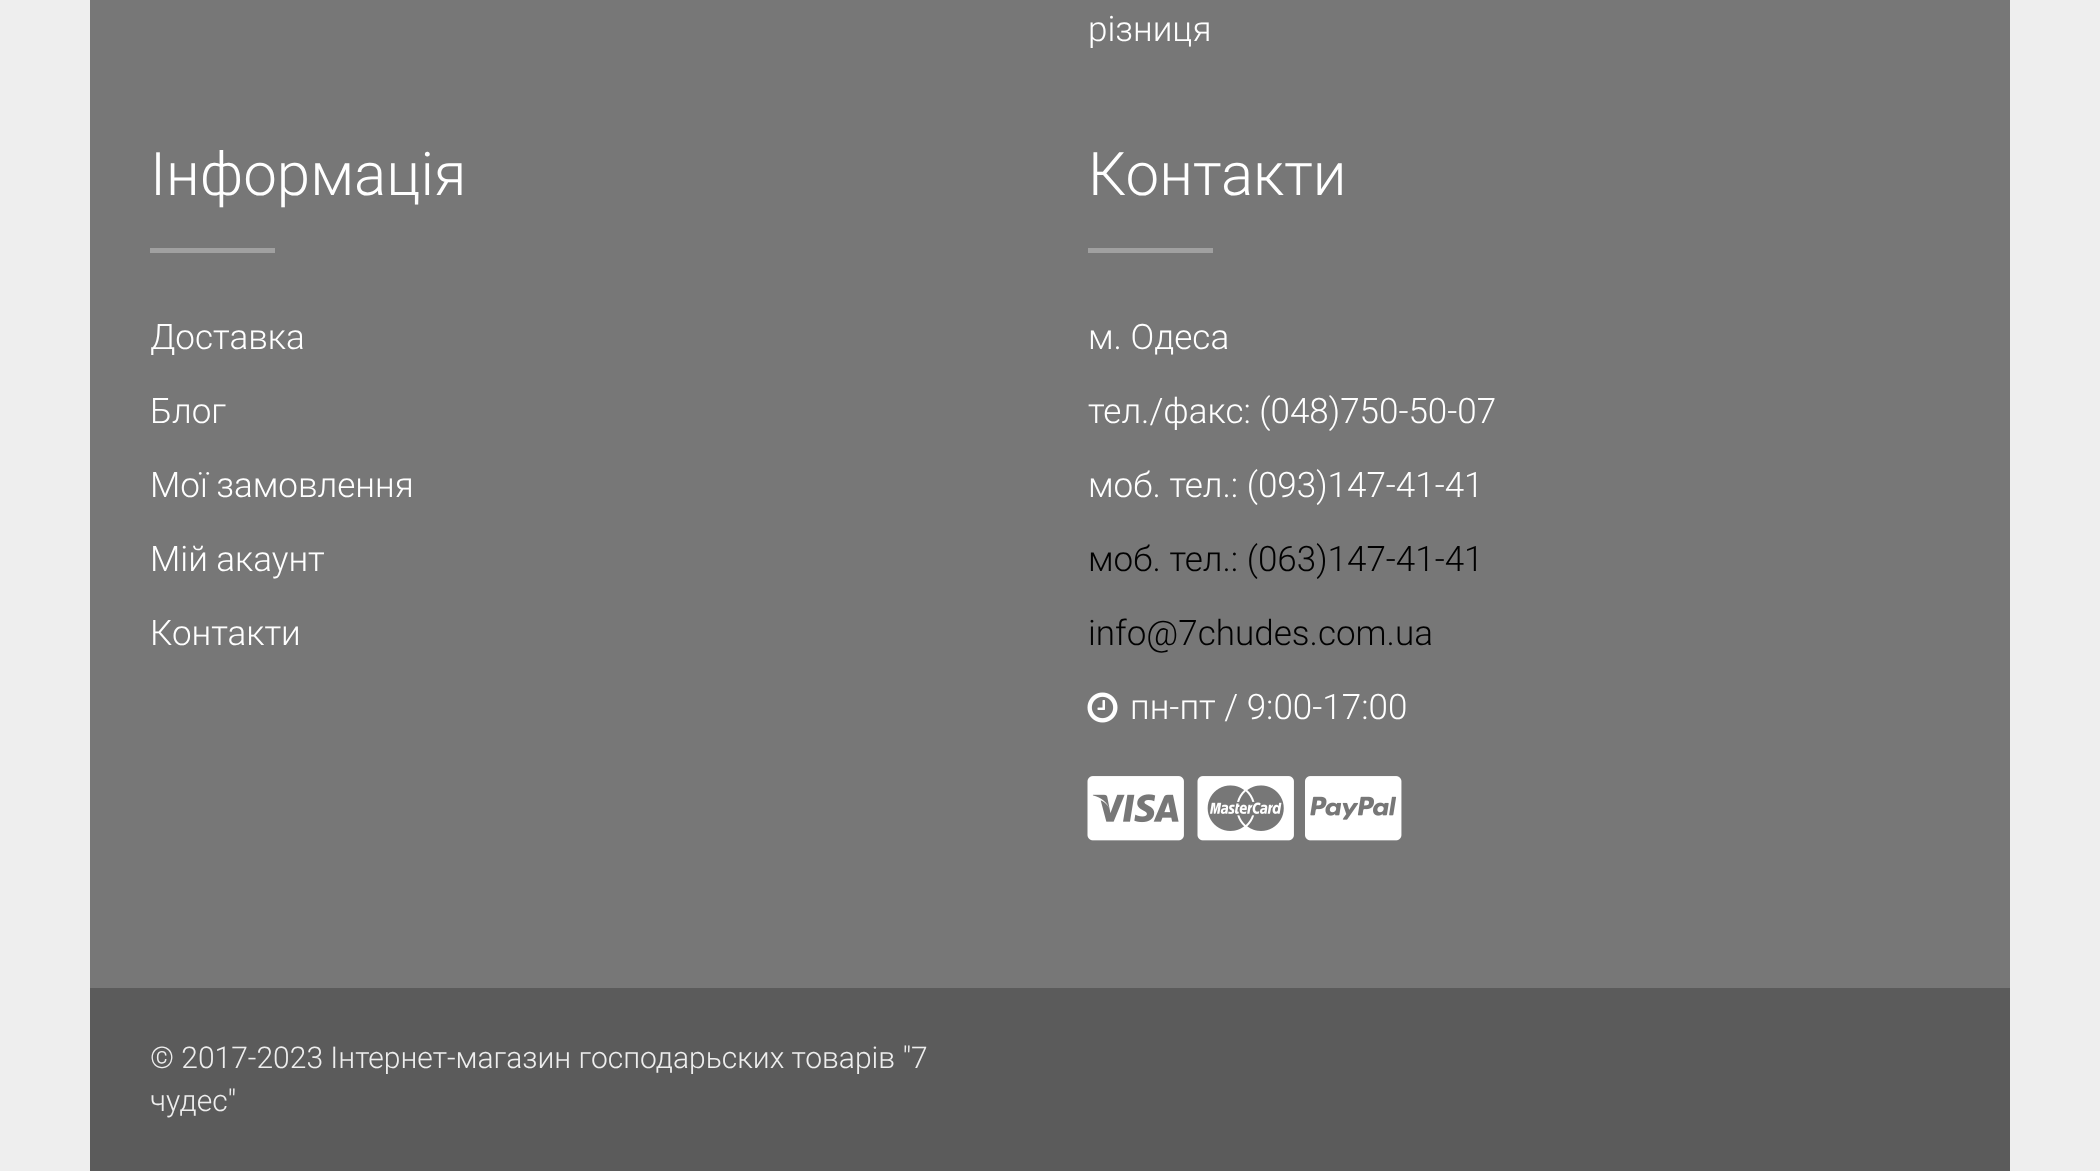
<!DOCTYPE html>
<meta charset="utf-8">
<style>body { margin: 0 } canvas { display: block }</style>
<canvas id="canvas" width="2100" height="1171"></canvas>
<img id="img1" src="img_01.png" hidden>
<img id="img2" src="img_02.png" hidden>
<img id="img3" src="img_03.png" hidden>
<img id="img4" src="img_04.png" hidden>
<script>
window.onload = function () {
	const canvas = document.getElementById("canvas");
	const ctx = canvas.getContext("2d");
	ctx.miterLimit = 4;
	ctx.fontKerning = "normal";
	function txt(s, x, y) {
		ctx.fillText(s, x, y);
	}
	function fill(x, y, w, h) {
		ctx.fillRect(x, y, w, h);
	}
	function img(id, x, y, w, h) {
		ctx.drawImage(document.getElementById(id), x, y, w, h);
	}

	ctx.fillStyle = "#EEEEEE";
	fill(0, 0, 2100, 1171);
	ctx.fillStyle = "#777777";
	fill(90, 0, 1920, 988);
	ctx.fillStyle = "#A0A0A0";
	fill(150, 248, 125, 5);
	fill(1088, 248, 125, 5);
	img("img1", 1087, 692, 31, 31);
	img("img2", 1087, 776, 97, 65);
	img("img3", 1197, 776, 97, 65);
	img("img4", 1305, 776, 97, 65);
	ctx.fillStyle = "#5B5B5B";
	fill(90, 988, 1920, 183);
	ctx.font = "300 35px Roboto";
	ctx.fillStyle = "#FFFFFF";
	txt("різниця", 1088, 41);
	ctx.font = "300 60px Roboto";
	txt("Інформація", 150, 195);
	ctx.font = "300 35px Roboto";
	txt("Доставка", 150, 349);
	txt("Блог", 150, 423);
	txt("Мої замовлення", 150, 497);
	txt("Мій акаунт", 150, 571);
	txt("Контакти", 150, 645);
	ctx.font = "300 60px Roboto";
	txt("Контакти", 1088, 195);
	ctx.font = "300 35px Roboto";
	txt("м. Одеса", 1088, 349);
	txt("тел./факс: (048)750-50-07", 1088, 423);
	txt("моб. тел.: (093)147-41-41", 1088, 497);
	ctx.fillStyle = "#000000";
	txt("моб. тел.: (063)147-41-41", 1088, 571);
	txt("info@7chudes.com.ua", 1088, 645);
	ctx.fillStyle = "#FFFFFF";
	txt("пн-пт / 9:00-17:00", 1130, 719);
	ctx.font = "300 30px Roboto";
	ctx.fillStyle = "#EEEEEE";
	txt("© 2017-2023 Інтернет-магазин господарьских товарів \"7", 150, 1068);
	txt("чудес\"", 150, 1111);
};
</script>
